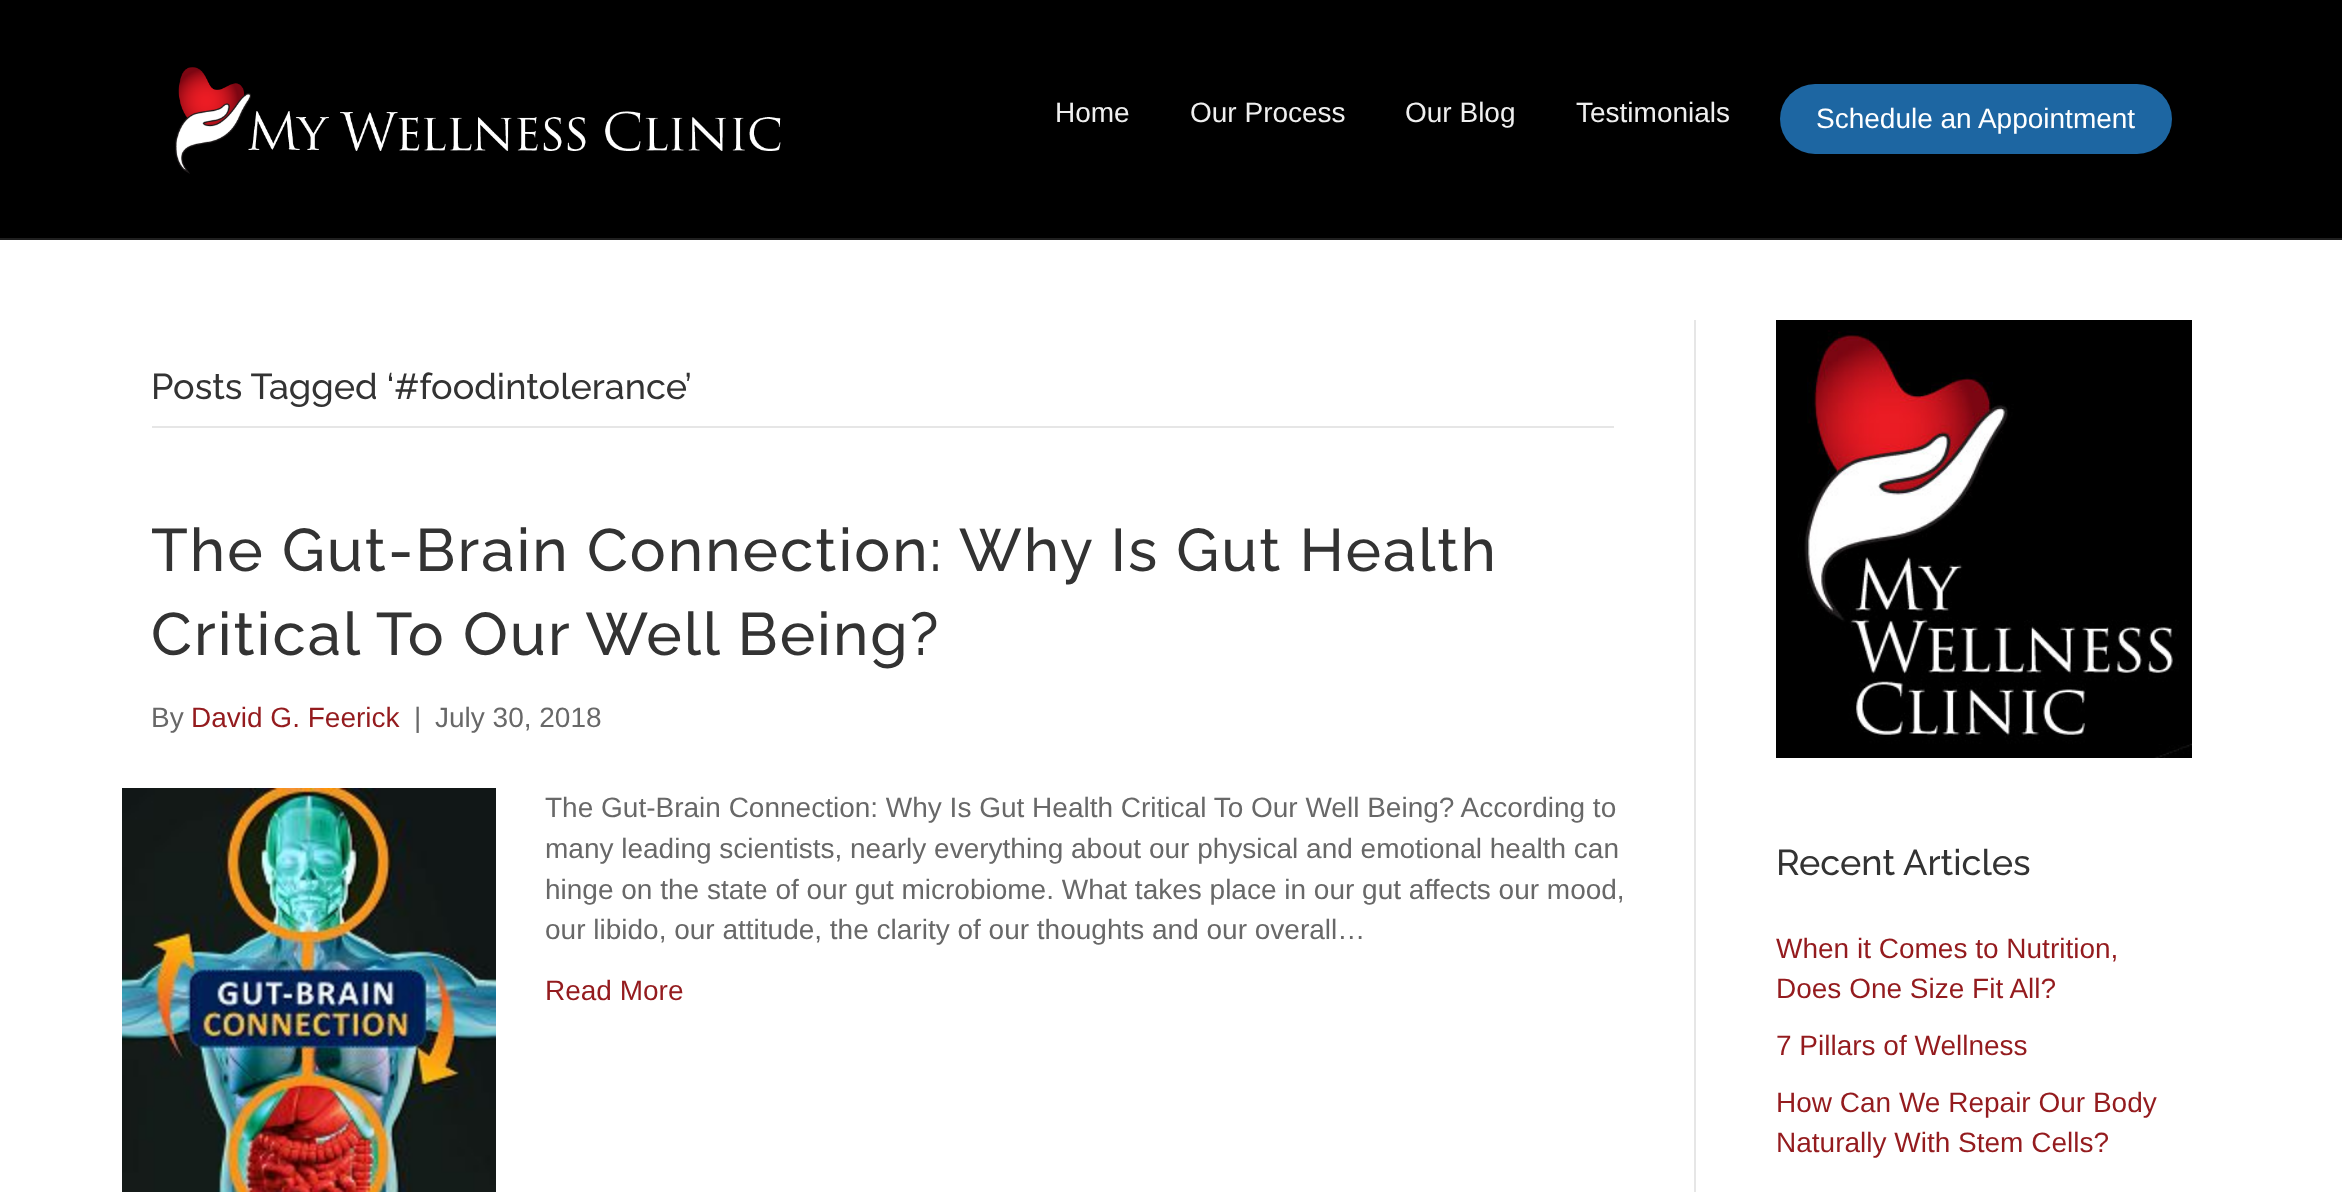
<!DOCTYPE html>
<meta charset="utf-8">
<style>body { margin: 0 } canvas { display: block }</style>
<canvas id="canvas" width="2342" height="1192"></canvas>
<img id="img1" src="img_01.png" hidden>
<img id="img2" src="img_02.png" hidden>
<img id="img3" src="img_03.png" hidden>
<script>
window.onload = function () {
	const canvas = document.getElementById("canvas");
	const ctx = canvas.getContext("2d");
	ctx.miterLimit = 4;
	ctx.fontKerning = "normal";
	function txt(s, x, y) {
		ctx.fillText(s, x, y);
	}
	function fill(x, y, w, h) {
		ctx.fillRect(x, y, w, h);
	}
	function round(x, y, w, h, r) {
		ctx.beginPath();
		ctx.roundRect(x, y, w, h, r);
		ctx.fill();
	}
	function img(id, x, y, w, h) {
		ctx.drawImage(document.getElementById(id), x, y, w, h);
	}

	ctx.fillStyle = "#000000";
	fill(0, 0, 2342, 1192);
	ctx.fillStyle = "#1F1F1F";
	fill(0, 238, 2342, 2);
	img("img1", 175, 67, 606, 107);
	ctx.fillStyle = "#1D66A2";
	round(1780, 84, 392, 70, 35);
	ctx.fillStyle = "#FFFFFF";
	fill(0, 240, 2342, 952);
	ctx.fillStyle = "#E6E6E6";
	fill(1694, 320, 2, 872);
	fill(152, 426, 1462, 2);
	img("img2", 122, 788, 374, 404);
	img("img3", 1776, 320, 416, 438);
	ctx.font = "28px Liberation Sans";
	ctx.fillStyle = "#EFEFEF";
	txt("Home", 1055, 122);
	txt("Our Process", 1190, 122);
	txt("Our Blog", 1405, 122);
	txt("Testimonials", 1576, 122);
	ctx.fillStyle = "#FFFFFF";
	txt("Schedule an Appointment", 1816, 128);
	ctx.font = "100 36px Raleway";
	ctx.fillStyle = "#333333";
	txt("Posts Tagged ‘#foodintolerance’", 151, 399);
	ctx.letterSpacing = "2px";
	ctx.font = "100 60px Raleway";
	txt("The Gut-Brain Connection: Why Is Gut Health", 151, 571);
	txt("Critical To Our Well Being?", 151, 655);
	ctx.letterSpacing = "0px";
	ctx.font = "28px Liberation Sans";
	ctx.fillStyle = "#686868";
	txt("By", 151, 727);
	ctx.fillStyle = "#941B1E";
	txt("David G. Feerick", 191, 727);
	ctx.fillStyle = "#686868";
	txt("|", 414, 727);
	txt("July 30, 2018", 435, 727);
	txt("The Gut-Brain Connection: Why Is Gut Health Critical To Our Well Being? According to", 545, 817);
	txt("many leading scientists, nearly everything about our physical and emotional health can", 545, 858);
	txt("hinge on the state of our gut microbiome. What takes place in our gut affects our mood,", 545, 899);
	txt("our libido, our attitude, the clarity of our thoughts and our overall…", 545, 939);
	ctx.fillStyle = "#941B1E";
	txt("Read More", 545, 1000);
	ctx.font = "100 36px Raleway";
	ctx.fillStyle = "#333333";
	txt("Recent Articles", 1776, 875);
	ctx.font = "28px Liberation Sans";
	ctx.fillStyle = "#941B1E";
	txt("When it Comes to Nutrition,", 1776, 958);
	txt("Does One Size Fit All?", 1776, 998);
	txt("7 Pillars of Wellness", 1776, 1055);
	txt("How Can We Repair Our Body", 1776, 1112);
	txt("Naturally With Stem Cells?", 1776, 1152);
};
</script>
